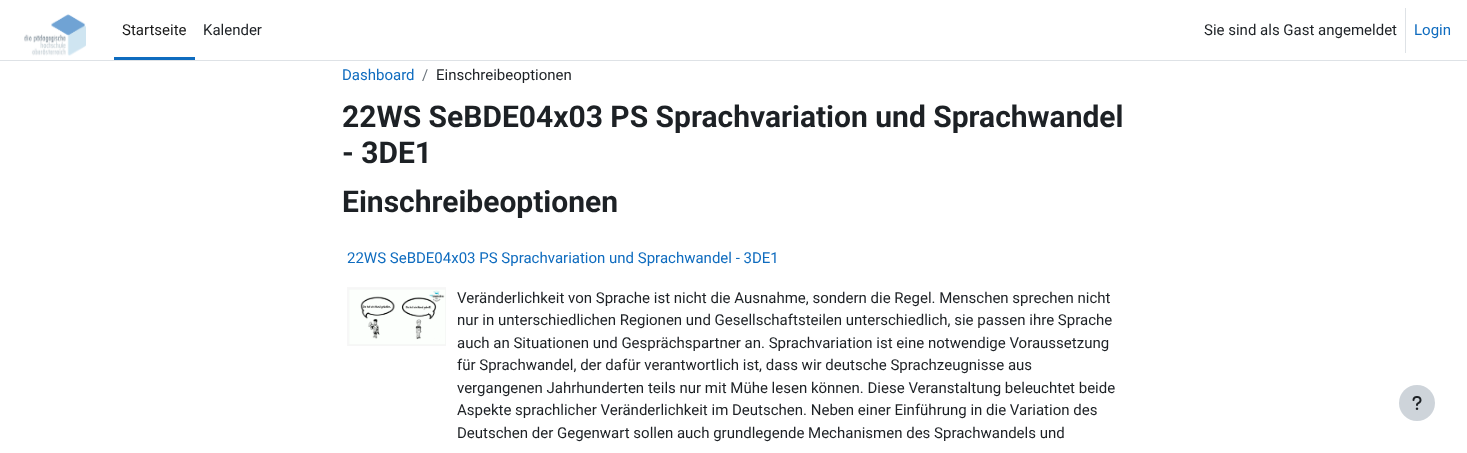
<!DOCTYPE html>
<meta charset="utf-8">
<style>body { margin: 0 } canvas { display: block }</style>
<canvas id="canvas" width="1467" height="453"></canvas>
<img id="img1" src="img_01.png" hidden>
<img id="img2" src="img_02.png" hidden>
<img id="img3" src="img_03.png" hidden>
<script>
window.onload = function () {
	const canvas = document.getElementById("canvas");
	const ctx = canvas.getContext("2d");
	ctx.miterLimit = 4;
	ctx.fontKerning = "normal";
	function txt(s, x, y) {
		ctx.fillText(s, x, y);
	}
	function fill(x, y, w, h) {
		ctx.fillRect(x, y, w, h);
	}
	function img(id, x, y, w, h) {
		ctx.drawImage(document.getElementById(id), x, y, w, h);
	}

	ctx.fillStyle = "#FFFFFF";
	fill(0, 0, 1467, 453);
	ctx.fillStyle = "#DEE2E6";
	fill(0, 60, 1467, 1);
	img("img1", 24, 14, 62, 42);
	ctx.fillStyle = "#0F6CBF";
	fill(114, 57, 81, 3);
	ctx.fillStyle = "#DEE2E6";
	fill(1405, 8, 1, 45);
	img("img2", 347, 287, 99, 59);
	ctx.fillStyle = "#CED4DA";
	ctx.beginPath();
	ctx.arc(1417, 403, 18, 0, Math.PI * 2);
	ctx.fill();
	img("img3", 1412, 396, 10, 14);
	ctx.font = "15px Roboto";
	ctx.fillStyle = "#1A1A1A";
	txt("Startseite", 122, 35);
	ctx.fillStyle = "#1D2125";
	txt("Kalender", 203, 35);
	txt("Sie sind als Gast angemeldet", 1204, 35);
	ctx.fillStyle = "#0F6CBF";
	txt("Login", 1414, 35);
	txt("Dashboard", 342, 80);
	ctx.fillStyle = "#6A737B";
	txt("/", 422, 80);
	ctx.fillStyle = "#1D2125";
	txt("Einschreibeoptionen", 436, 80);
	ctx.font = "bold 30px Roboto";
	txt("22WS SeBDE04x03 PS Sprachvariation und Sprachwandel", 342, 127);
	txt("- 3DE1", 342, 163);
	txt("Einschreibeoptionen", 342, 212);
	ctx.font = "15px Roboto";
	ctx.fillStyle = "#0F6CBF";
	txt("22WS SeBDE04x03 PS Sprachvariation und Sprachwandel - 3DE1", 347, 263);
	ctx.fillStyle = "#1D2125";
	txt("Veränderlichkeit von Sprache ist nicht die Ausnahme, sondern die Regel. Menschen sprechen nicht", 457, 303);
	txt("nur in unterschiedlichen Regionen und Gesellschaftsteilen unterschiedlich, sie passen ihre Sprache", 457, 325);
	txt("auch an Situationen und Gesprächspartner an. Sprachvariation ist eine notwendige Voraussetzung", 457, 348);
	txt("für Sprachwandel, der dafür verantwortlich ist, dass wir deutsche Sprachzeugnisse aus", 457, 370);
	txt("vergangenen Jahrhunderten teils nur mit Mühe lesen können. Diese Veranstaltung beleuchtet beide", 457, 393);
	txt("Aspekte sprachlicher Veränderlichkeit im Deutschen. Neben einer Einführung in die Variation des", 457, 415);
	txt("Deutschen der Gegenwart sollen auch grundlegende Mechanismen des Sprachwandels und", 457, 438);
};
</script>
